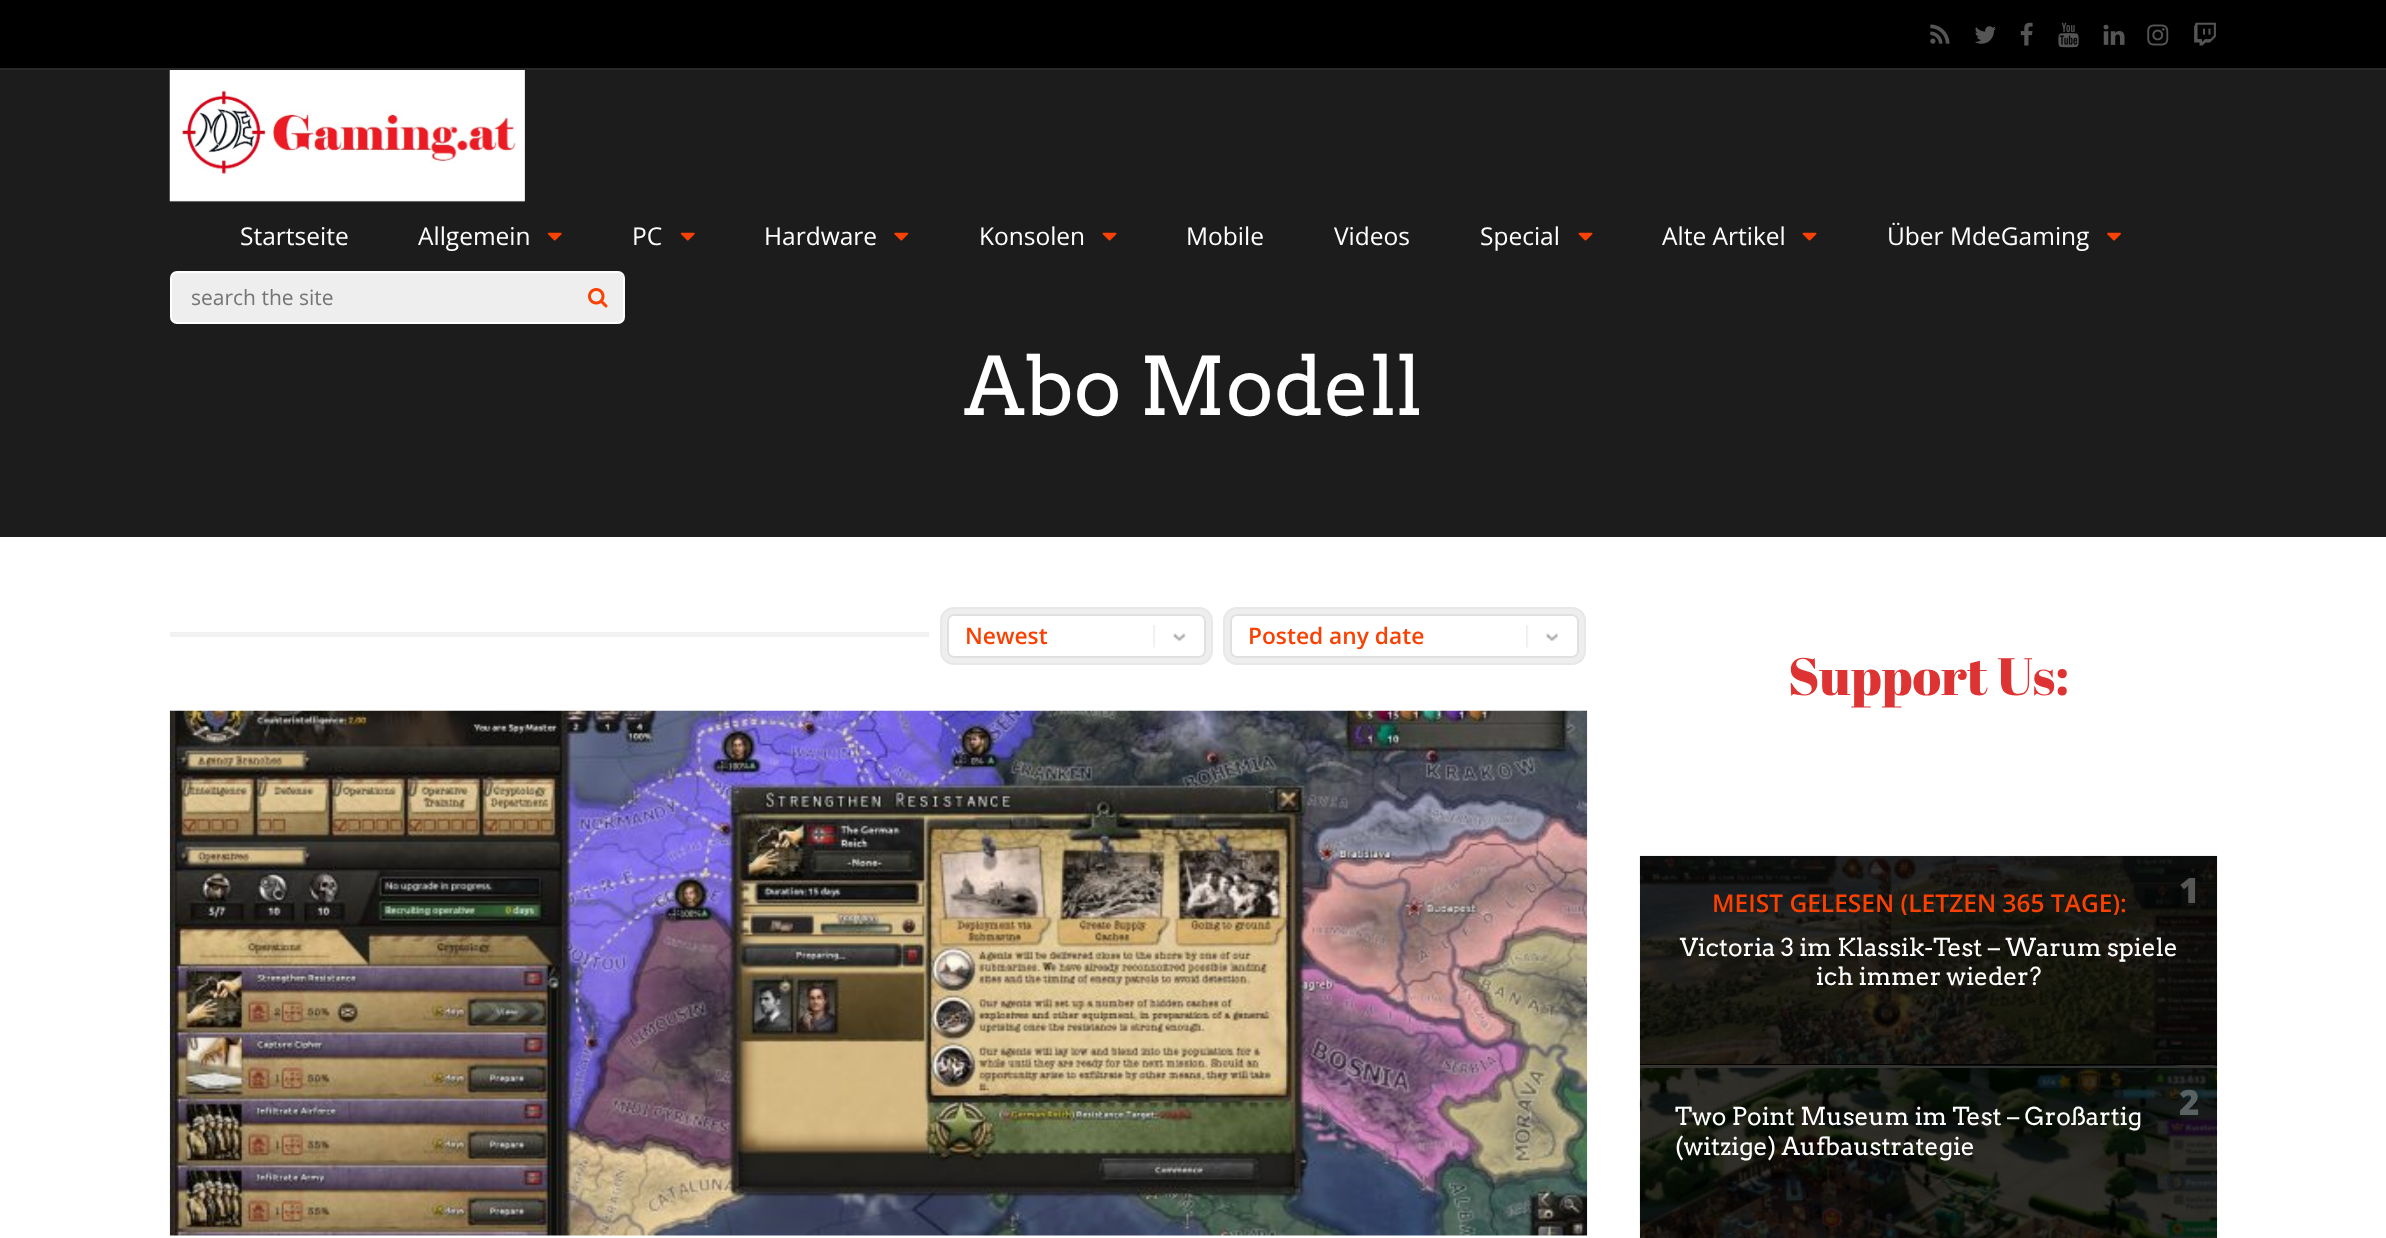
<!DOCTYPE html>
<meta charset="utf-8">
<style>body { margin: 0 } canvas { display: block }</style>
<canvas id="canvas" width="2386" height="1238"></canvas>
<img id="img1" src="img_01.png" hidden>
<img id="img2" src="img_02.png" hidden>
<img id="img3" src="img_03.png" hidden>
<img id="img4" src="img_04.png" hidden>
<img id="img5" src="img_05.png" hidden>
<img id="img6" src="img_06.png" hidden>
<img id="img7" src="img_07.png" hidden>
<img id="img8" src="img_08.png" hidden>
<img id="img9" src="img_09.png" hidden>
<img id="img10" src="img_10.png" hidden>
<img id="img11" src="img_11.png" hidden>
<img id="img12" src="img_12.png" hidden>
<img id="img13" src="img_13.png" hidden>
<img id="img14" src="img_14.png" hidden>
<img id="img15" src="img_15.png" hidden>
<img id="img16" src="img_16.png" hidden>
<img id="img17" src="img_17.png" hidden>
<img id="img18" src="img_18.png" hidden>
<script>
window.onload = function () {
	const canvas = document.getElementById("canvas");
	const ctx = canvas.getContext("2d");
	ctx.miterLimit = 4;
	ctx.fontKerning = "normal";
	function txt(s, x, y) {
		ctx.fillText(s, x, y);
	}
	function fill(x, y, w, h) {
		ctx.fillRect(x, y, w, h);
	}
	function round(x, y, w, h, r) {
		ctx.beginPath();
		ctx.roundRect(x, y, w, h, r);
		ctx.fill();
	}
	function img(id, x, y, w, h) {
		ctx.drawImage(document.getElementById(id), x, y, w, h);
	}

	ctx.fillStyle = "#FFFFFF";
	fill(0, 0, 2386, 1238);
	ctx.fillStyle = "#000000";
	fill(0, 0, 2386, 68);
	ctx.fillStyle = "#292929";
	fill(0, 68, 2386, 2);
	img("img1", 1930, 24, 20, 20);
	img("img2", 1975, 26, 21, 18);
	img("img3", 2020, 22, 13, 24);
	img("img4", 2058, 22, 21, 26);
	img("img5", 2103, 24, 22, 21);
	img("img6", 2147, 24, 22, 22);
	img("img7", 2194, 22, 22, 24);
	ctx.fillStyle = "#1C1C1C";
	fill(0, 70, 2386, 467);
	img("img8", 169, 70, 356, 132);
	img("img9", 547, 232, 15, 9);
	img("img9", 680, 232, 15, 9);
	img("img10", 894, 232, 15, 9);
	img("img11", 1102, 232, 15, 9);
	img("img11", 1578, 232, 15, 9);
	img("img11", 1802, 232, 15, 9);
	img("img12", 2107, 232, 14, 9);
	ctx.fillStyle = "#EEEEEE";
	ctx.beginPath();
	ctx.roundRect(171, 272, 453, 51, 6);
	ctx.fill();
	ctx.strokeStyle = "#FFFFFF";
	ctx.lineWidth = 2;
	ctx.stroke();
	img("img13", 588, 288, 20, 20);
	ctx.fillStyle = "#F1F1F1";
	fill(170, 632, 759, 5);
	ctx.beginPath();
	ctx.roundRect(943.5, 610.5, 266, 51, 10.5);
	ctx.strokeStyle = "#E8E8E8";
	ctx.lineWidth = 7;
	ctx.stroke();
	ctx.beginPath();
	ctx.roundRect(944.5, 611.5, 264, 49, 9.5);
	ctx.strokeStyle = "rgba(255, 255, 255, 0.25)";
	ctx.lineWidth = 5;
	ctx.stroke();
	ctx.fillStyle = "#FFFFFF";
	round(947, 614, 259, 44, 7);
	img("img14", 1153, 625, 33, 23);
	ctx.beginPath();
	ctx.roundRect(948, 615, 257, 42, 6);
	ctx.strokeStyle = "rgba(0, 0, 0, 0.12)";
	ctx.lineWidth = 2;
	ctx.stroke();
	ctx.beginPath();
	ctx.roundRect(1226.5, 610.5, 356, 51, 10.5);
	ctx.strokeStyle = "#E8E8E8";
	ctx.lineWidth = 7;
	ctx.stroke();
	ctx.beginPath();
	ctx.roundRect(1227.5, 611.5, 354, 49, 9.5);
	ctx.strokeStyle = "rgba(255, 255, 255, 0.25)";
	ctx.lineWidth = 5;
	ctx.stroke();
	round(1230, 614, 349, 44, 7);
	img("img15", 1526, 624, 32, 24);
	ctx.beginPath();
	ctx.roundRect(1231, 615, 347, 42, 6);
	ctx.strokeStyle = "rgba(0, 0, 0, 0.12)";
	ctx.lineWidth = 2;
	ctx.stroke();
	img("img16", 169, 710, 1419, 526);
	img("img17", 1639, 855, 579, 211);
	ctx.fillStyle = "#000000";
	fill(1640, 1064, 577, 2);
	img("img18", 1639, 1065, 579, 173);
	ctx.fillStyle = "#333333";
	fill(1640, 1066, 577, 2);
	ctx.font = "24.5px Open Sans";
	ctx.fillStyle = "#FFFFFF";
	txt("Startseite", 240, 245);
	txt("Allgemein", 418, 245);
	txt("PC", 632, 245);
	txt("Hardware", 764, 245);
	txt("Konsolen", 979, 245);
	txt("Mobile", 1186, 245);
	txt("Videos", 1334, 245);
	txt("Special", 1480, 245);
	txt("Alte Artikel", 1662, 245);
	txt("Über MdeGaming", 1887, 245);
	ctx.font = "21px Open Sans";
	ctx.fillStyle = "#757575";
	txt("search the site", 191, 305);
	ctx.font = "80.5px Arvo";
	ctx.fillStyle = "#FFFFFF";
	txt("Abo Modell", 964, 415);
	ctx.font = "600 22.75px Open Sans";
	ctx.fillStyle = "#F84103";
	txt("Newest", 965, 644);
	ctx.save();
	ctx.beginPath();
	ctx.rect(1248, 623, 269, 26);
	ctx.clip();
	txt("Posted any date", 1248, 644);
	ctx.restore();
	ctx.font = "52.5px Abril Fatface";
	ctx.fillStyle = "#DD3333";
	txt("Support Us:", 1788, 695);
	ctx.save();
	ctx.beginPath();
	ctx.rect(1675, 891, 507, 24);
	ctx.clip();
	ctx.font = "600 24.5px Open Sans";
	ctx.fillStyle = "#F84103";
	txt("MEIST GELESEN (LETZEN 365 TAGE):", 1712, 912);
	ctx.restore();
	ctx.font = "800 35px Open Sans";
	ctx.fillStyle = "#565655";
	txt("1", 2179, 903);
	ctx.font = "24.5px Arvo";
	ctx.fillStyle = "#FFFFFF";
	txt("Victoria 3 im Klassik-Test – Warum spiele", 1680, 956);
	txt("ich immer wieder?", 1816, 985);
	ctx.font = "800 35px Open Sans";
	ctx.fillStyle = "#5A6162";
	txt("2", 2179, 1115);
	ctx.font = "24.5px Arvo";
	ctx.fillStyle = "#FFFFFF";
	txt("Two Point Museum im Test – Großartig", 1675, 1125);
	txt("(witzige) Aufbaustrategie", 1675, 1155);
};
</script>
